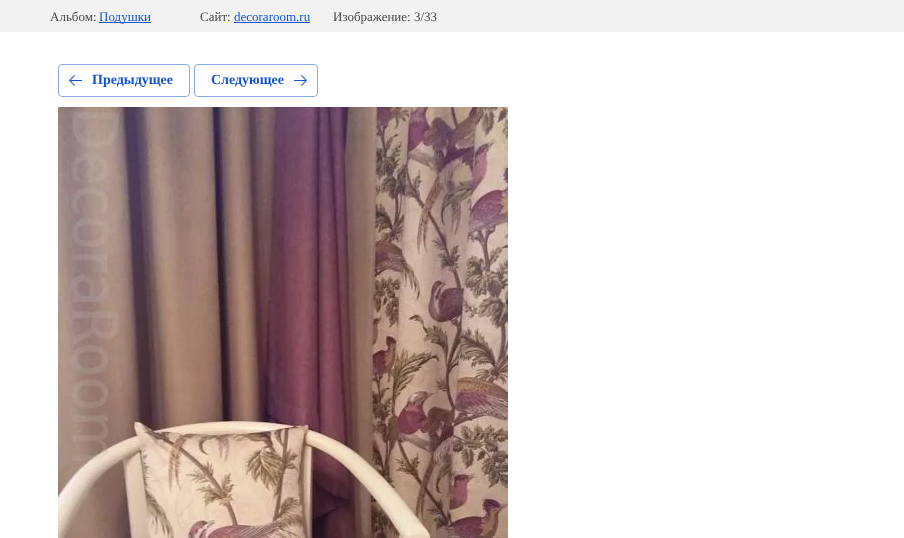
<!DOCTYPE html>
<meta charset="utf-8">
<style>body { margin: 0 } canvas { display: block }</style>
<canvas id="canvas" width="904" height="538"></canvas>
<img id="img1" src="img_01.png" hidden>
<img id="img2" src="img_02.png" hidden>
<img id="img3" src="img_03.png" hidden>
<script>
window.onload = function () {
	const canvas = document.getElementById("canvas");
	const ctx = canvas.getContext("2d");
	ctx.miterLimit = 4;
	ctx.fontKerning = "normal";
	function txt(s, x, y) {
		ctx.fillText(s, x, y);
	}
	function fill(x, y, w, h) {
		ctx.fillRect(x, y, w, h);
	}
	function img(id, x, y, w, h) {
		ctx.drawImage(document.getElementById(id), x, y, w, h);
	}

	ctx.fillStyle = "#FFFFFF";
	fill(0, 0, 904, 538);
	ctx.fillStyle = "#F3F3F3";
	fill(0, 0, 904, 32);
	ctx.fillStyle = "#1155CC";
	fill(99, 22, 52, 1);
	fill(234, 22, 76, 1);
	ctx.beginPath();
	ctx.roundRect(58.5, 64.5, 131, 32, 3.5);
	ctx.strokeStyle = "#88AAE6";
	ctx.stroke();
	img("img1", 69, 75, 13, 11);
	ctx.beginPath();
	ctx.roundRect(194.5, 64.5, 123, 32, 3.5);
	ctx.stroke();
	img("img2", 294, 75, 13, 11);
	img("img3", 58, 107, 450, 431);
	ctx.font = "13px Liberation Serif";
	ctx.fillStyle = "#484848";
	txt("Альбом:", 50, 21);
	ctx.fillStyle = "#1155CC";
	txt("Подушки", 99, 21);
	ctx.fillStyle = "#484848";
	txt("Сайт:", 200, 21);
	ctx.fillStyle = "#1155CC";
	txt("decoraroom.ru", 234, 21);
	ctx.fillStyle = "#484848";
	txt("Изображение: 3/33", 333, 21);
	ctx.font = "bold 14px Liberation Serif";
	ctx.fillStyle = "#1155CC";
	txt("Предыдущее", 92, 84);
	txt("Следующее", 211, 84);
};
</script>
